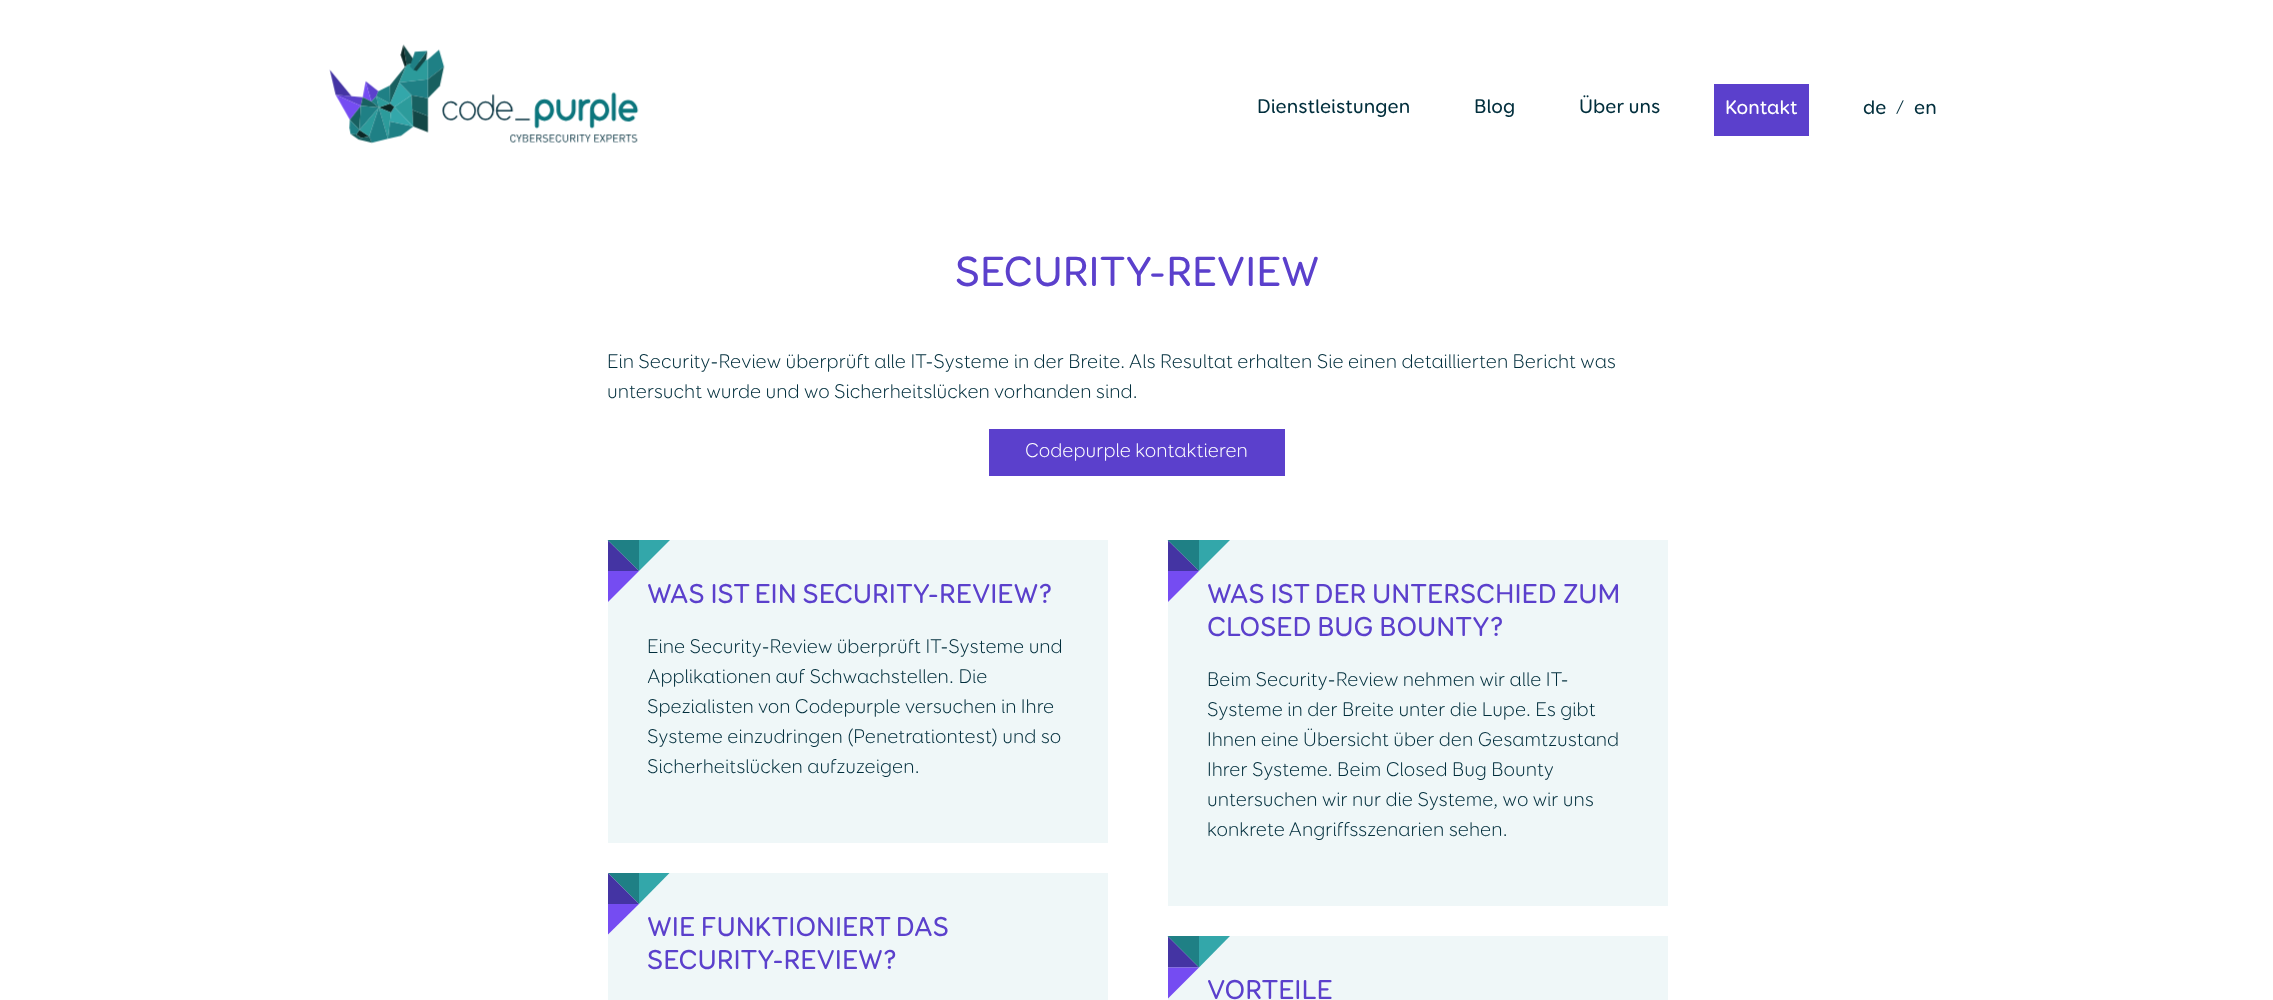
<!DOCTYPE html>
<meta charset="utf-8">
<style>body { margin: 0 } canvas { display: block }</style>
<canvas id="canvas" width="2273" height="1000"></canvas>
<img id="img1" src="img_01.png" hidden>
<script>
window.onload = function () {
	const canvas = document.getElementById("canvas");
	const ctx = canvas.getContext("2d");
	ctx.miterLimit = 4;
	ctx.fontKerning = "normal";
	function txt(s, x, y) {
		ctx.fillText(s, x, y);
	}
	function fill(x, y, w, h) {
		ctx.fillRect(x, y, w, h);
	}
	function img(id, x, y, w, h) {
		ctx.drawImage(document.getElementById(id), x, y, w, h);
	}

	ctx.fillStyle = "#FFFFFF";
	fill(0, 0, 2273, 1000);
	img("img1", 329, 44, 310, 100);
	ctx.fillStyle = "#5B40CC";
	fill(1714, 84, 95, 52);
	fill(989, 429, 296, 47);
	ctx.fillStyle = "#EFF7F8";
	fill(608, 540, 500, 303);
	ctx.fillStyle = "#1F8085";
	ctx.beginPath();
	ctx.moveTo(607.5, 540);
	ctx.lineTo(639, 540);
	ctx.lineTo(639, 571);
	ctx.closePath();
	ctx.fill();
	ctx.fillStyle = "#33A7AA";
	ctx.beginPath();
	ctx.moveTo(639, 571);
	ctx.lineTo(639, 540);
	ctx.lineTo(670, 540);
	ctx.closePath();
	ctx.fill();
	ctx.save();
	ctx.beginPath();
	ctx.rect(608, 540, 62, 63);
	ctx.clip();
	ctx.fillStyle = "#4434A3";
	ctx.beginPath();
	ctx.moveTo(639, 571);
	ctx.lineTo(607.5, 571);
	ctx.lineTo(607.5, 540);
	ctx.closePath();
	ctx.fill();
	ctx.fillStyle = "#754CF2";
	ctx.beginPath();
	ctx.moveTo(607.5, 602.5);
	ctx.lineTo(607.5, 571);
	ctx.lineTo(639, 571);
	ctx.closePath();
	ctx.fill();
	ctx.restore();
	ctx.fillStyle = "#EFF7F8";
	fill(608, 873, 500, 127);
	ctx.save();
	ctx.beginPath();
	ctx.rect(608, 873, 62, 62);
	ctx.clip();
	ctx.fillStyle = "#1F8085";
	ctx.beginPath();
	ctx.moveTo(607.5, 872.5);
	ctx.lineTo(639, 872.5);
	ctx.lineTo(639, 904);
	ctx.closePath();
	ctx.fill();
	ctx.fillStyle = "#33A7AA";
	ctx.beginPath();
	ctx.moveTo(639, 904);
	ctx.lineTo(639, 872.5);
	ctx.lineTo(670, 872.5);
	ctx.closePath();
	ctx.fill();
	ctx.fillStyle = "#4434A3";
	ctx.beginPath();
	ctx.moveTo(639, 904);
	ctx.lineTo(607.5, 904);
	ctx.lineTo(607.5, 872.5);
	ctx.closePath();
	ctx.fill();
	ctx.fillStyle = "#754CF2";
	ctx.beginPath();
	ctx.moveTo(607.5, 935);
	ctx.lineTo(607.5, 904);
	ctx.lineTo(639, 904);
	ctx.closePath();
	ctx.fill();
	ctx.restore();
	fill(1168, 540, 500, 366);
	ctx.fillStyle = "#1F8085";
	ctx.beginPath();
	ctx.moveTo(1167.5, 540);
	ctx.lineTo(1199, 540);
	ctx.lineTo(1199, 571);
	ctx.closePath();
	ctx.fill();
	ctx.fillStyle = "#33A7AA";
	ctx.beginPath();
	ctx.moveTo(1199, 571);
	ctx.lineTo(1199, 540);
	ctx.lineTo(1230, 540);
	ctx.closePath();
	ctx.fill();
	ctx.save();
	ctx.beginPath();
	ctx.rect(1168, 540, 62, 63);
	ctx.clip();
	ctx.fillStyle = "#4434A3";
	ctx.beginPath();
	ctx.moveTo(1199, 571);
	ctx.lineTo(1167.5, 571);
	ctx.lineTo(1167.5, 540);
	ctx.closePath();
	ctx.fill();
	ctx.fillStyle = "#754CF2";
	ctx.beginPath();
	ctx.moveTo(1167.5, 602.5);
	ctx.lineTo(1167.5, 571);
	ctx.lineTo(1199, 571);
	ctx.closePath();
	ctx.fill();
	ctx.restore();
	ctx.fillStyle = "#EFF7F8";
	fill(1168, 936, 500, 64);
	ctx.fillStyle = "#1F8085";
	ctx.beginPath();
	ctx.moveTo(1167.5, 936);
	ctx.lineTo(1199, 936);
	ctx.lineTo(1199, 967.5);
	ctx.closePath();
	ctx.fill();
	ctx.fillStyle = "#33A7AA";
	ctx.beginPath();
	ctx.moveTo(1199, 967.5);
	ctx.lineTo(1199, 936);
	ctx.lineTo(1230, 936);
	ctx.closePath();
	ctx.fill();
	ctx.save();
	ctx.beginPath();
	ctx.rect(1168, 936, 62, 63);
	ctx.clip();
	ctx.fillStyle = "#4434A3";
	ctx.beginPath();
	ctx.moveTo(1199, 967.5);
	ctx.lineTo(1167.5, 967.5);
	ctx.lineTo(1167.5, 936);
	ctx.closePath();
	ctx.fill();
	ctx.fillStyle = "#754CF2";
	ctx.beginPath();
	ctx.moveTo(1167.5, 999);
	ctx.lineTo(1167.5, 967.5);
	ctx.lineTo(1199, 967.5);
	ctx.closePath();
	ctx.fill();
	ctx.restore();
	ctx.font = "500 20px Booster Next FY";
	ctx.fillStyle = "#012E3C";
	txt("Dienstleistungen", 1257, 113);
	txt("Blog", 1474, 113);
	txt("Über uns", 1579, 113);
	ctx.fillStyle = "#FFFFFF";
	txt("Kontakt", 1725, 114);
	ctx.fillStyle = "#012E3C";
	txt("de", 1863, 114);
	ctx.font = "300 20px Booster Next FY";
	txt("/", 1896, 114);
	ctx.font = "500 20px Booster Next FY";
	txt("en", 1914, 114);
	ctx.font = "500 42.5px Booster Next FY";
	ctx.fillStyle = "#5B40CC";
	txt("SECURITY-REVIEW", 955, 286);
	ctx.font = "300 20px Booster Next FY";
	ctx.fillStyle = "#012E3C";
	txt("Ein Security-Review überprüft alle IT-Systeme in der Breite. Als Resultat erhalten Sie einen detaillierten Bericht was", 607, 368);
	txt("untersucht wurde und wo Sicherheitslücken vorhanden sind.", 607, 398);
	ctx.fillStyle = "#FFFFFF";
	txt("Codepurple kontaktieren", 1025, 457);
	ctx.font = "500 27.5px Booster Next FY";
	ctx.fillStyle = "#5B40CC";
	txt("WAS IST EIN SECURITY-REVIEW?", 647, 603);
	ctx.font = "300 20px Booster Next FY";
	ctx.fillStyle = "#012E3C";
	txt("Eine Security-Review überprüft IT-Systeme und", 647, 653);
	txt("Applikationen auf Schwachstellen. Die", 647, 683);
	txt("Spezialisten von Codepurple versuchen in Ihre", 647, 713);
	txt("Systeme einzudringen (Penetrationtest) und so", 647, 743);
	txt("Sicherheitslücken aufzuzeigen.", 647, 773);
	ctx.font = "500 27.5px Booster Next FY";
	ctx.fillStyle = "#5B40CC";
	txt("WIE FUNKTIONIERT DAS", 647, 936);
	txt("SECURITY-REVIEW?", 647, 969);
	txt("WAS IST DER UNTERSCHIED ZUM", 1207, 603);
	txt("CLOSED BUG BOUNTY?", 1207, 636);
	ctx.font = "300 20px Booster Next FY";
	ctx.fillStyle = "#012E3C";
	txt("Beim Security-Review nehmen wir alle IT-", 1207, 686);
	txt("Systeme in der Breite unter die Lupe. Es gibt", 1207, 716);
	txt("Ihnen eine Übersicht über den Gesamtzustand", 1207, 746);
	txt("Ihrer Systeme. Beim Closed Bug Bounty", 1207, 776);
	txt("untersuchen wir nur die Systeme, wo wir uns", 1207, 806);
	txt("konkrete Angriffsszenarien sehen.", 1207, 836);
	ctx.font = "500 27.5px Booster Next FY";
	ctx.fillStyle = "#5B40CC";
	txt("VORTEILE", 1207, 999);
};
</script>
